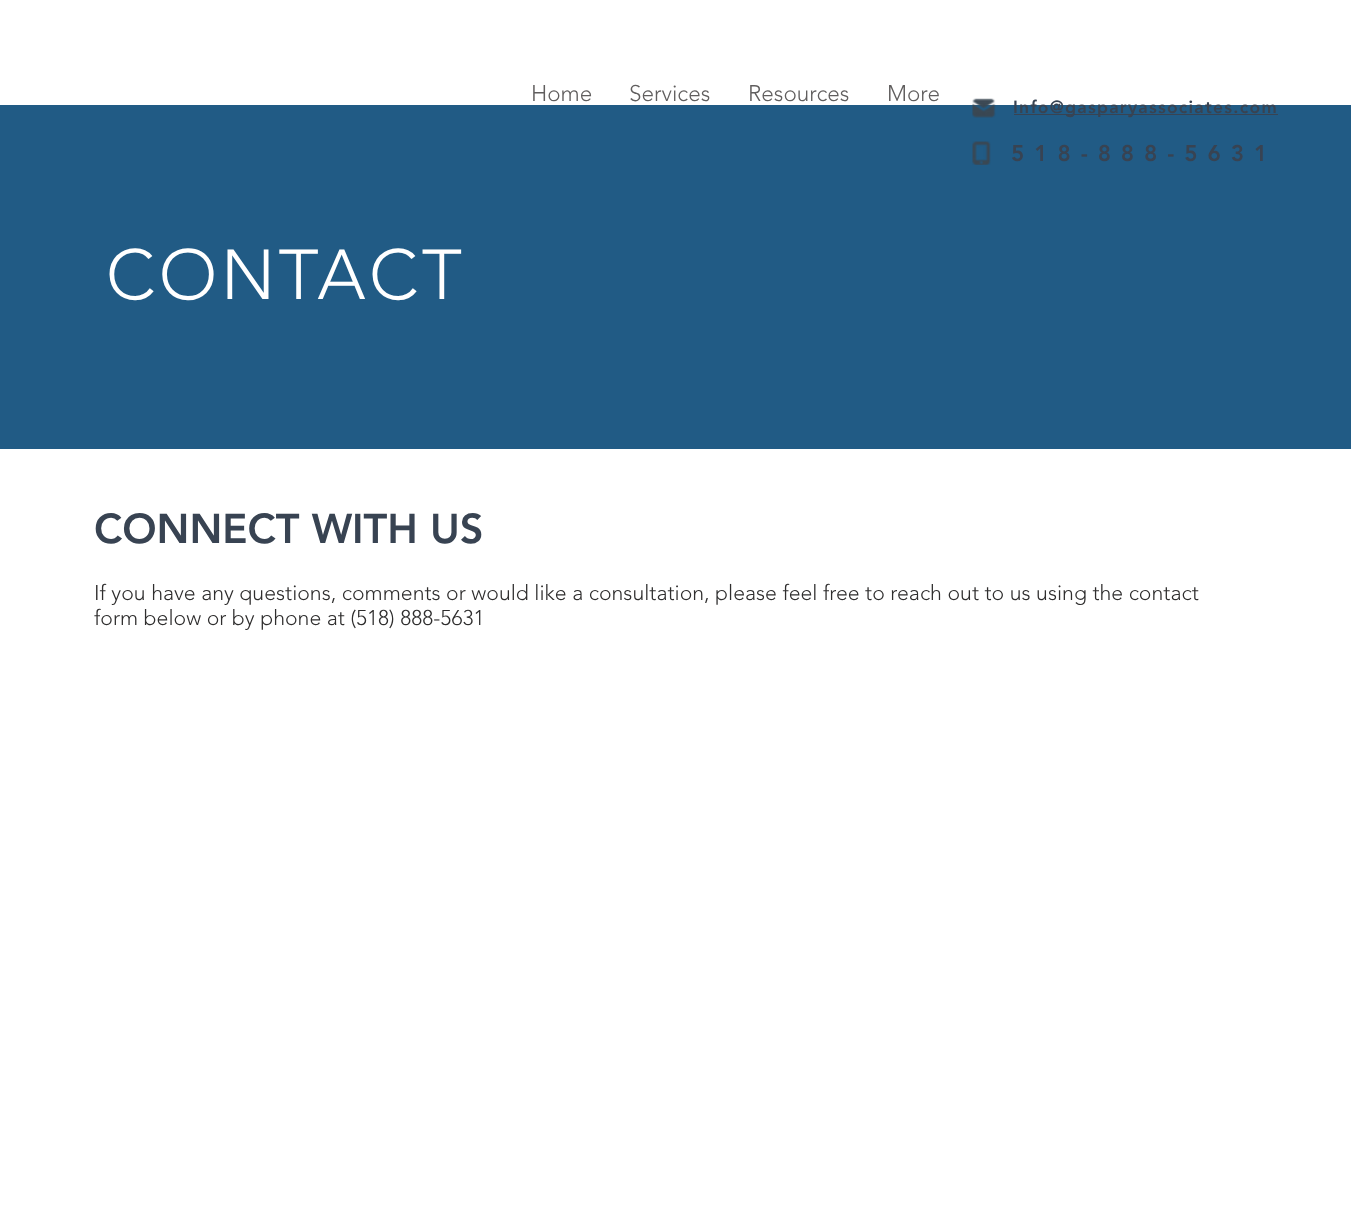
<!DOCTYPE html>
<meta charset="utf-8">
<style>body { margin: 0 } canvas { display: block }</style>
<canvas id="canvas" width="1351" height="1210"></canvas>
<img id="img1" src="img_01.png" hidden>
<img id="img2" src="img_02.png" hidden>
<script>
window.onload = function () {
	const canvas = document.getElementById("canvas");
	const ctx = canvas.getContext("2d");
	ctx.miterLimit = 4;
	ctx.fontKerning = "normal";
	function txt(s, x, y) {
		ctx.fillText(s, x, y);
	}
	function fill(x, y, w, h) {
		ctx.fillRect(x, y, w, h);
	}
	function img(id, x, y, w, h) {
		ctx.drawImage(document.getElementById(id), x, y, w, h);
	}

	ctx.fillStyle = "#FFFFFF";
	fill(0, 0, 1351, 1210);
	ctx.fillStyle = "#215B85";
	fill(0, 105, 1351, 344);
	img("img1", 972, 98, 24, 20);
	ctx.fillStyle = "#384352";
	fill(1014, 114, 264, 1);
	img("img2", 972, 141, 19, 24);
	ctx.font = "300 22.5px 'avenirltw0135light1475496'";
	ctx.fillStyle = "#605E5E";
	txt("Home", 531, 101);
	txt("Services", 629, 101);
	txt("Resources", 748, 101);
	txt("More", 887, 101);
	ctx.letterSpacing = "1.25px";
	ctx.font = "900 17.5px 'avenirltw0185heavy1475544'";
	ctx.fillStyle = "#384352";
	txt("Info@gasparyassociates.com", 1013, 113);
	ctx.letterSpacing = "9.9px";
	ctx.font = "900 22.5px 'avenirltw0185heavy1475544'";
	txt("518-888-5631", 1011, 161);
	ctx.letterSpacing = "3.5px";
	ctx.font = "300 70px 'avenirltw0135light1475496'";
	ctx.fillStyle = "#FFFFFF";
	txt("CONTACT", 106, 299);
	ctx.letterSpacing = "0px";
	ctx.font = "900 41.25px 'avenirltw0185heavy1475544'";
	ctx.fillStyle = "#384352";
	txt("CONNECT WITH US", 94, 543);
	ctx.font = "300 21.25px 'avenirltw0135light1475496'";
	ctx.fillStyle = "#2F2E2E";
	txt("If you have any questions, comments or would like a consultation, please feel free to reach out to us using the contact", 94, 600);
	txt("form below or by phone at (518) 888-5631", 94, 625);
};
</script>
